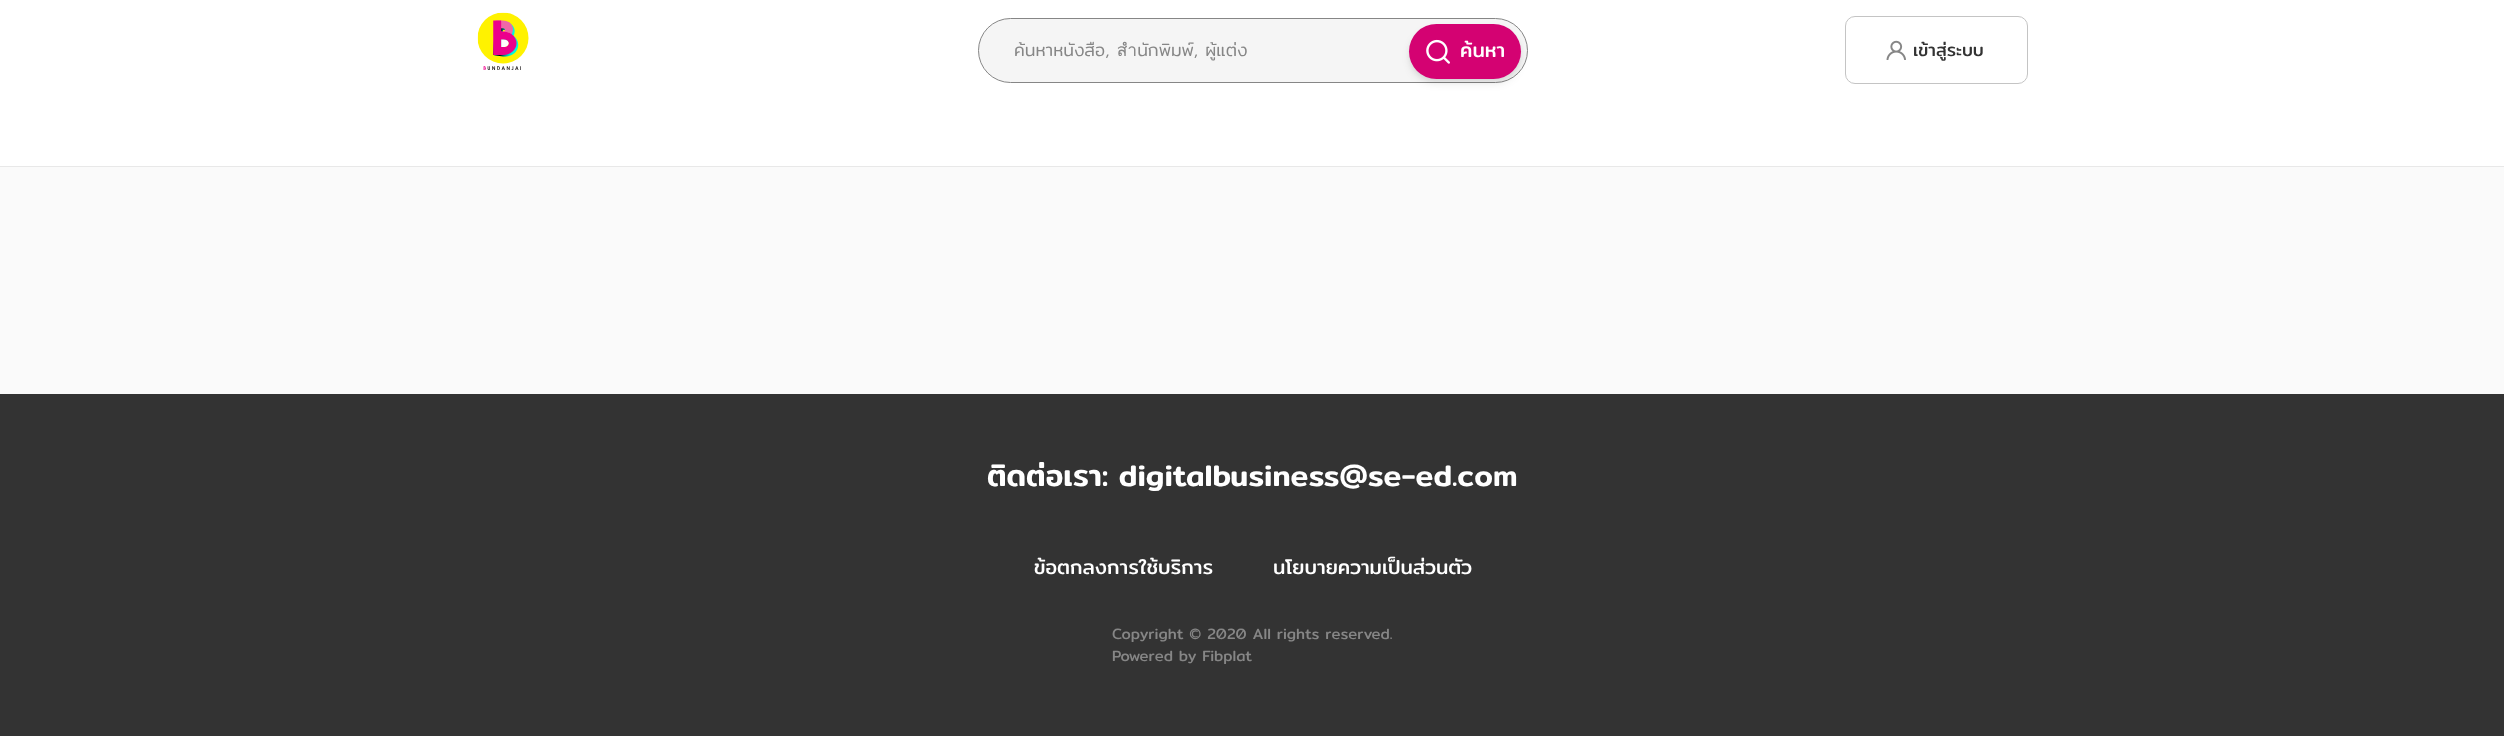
<!DOCTYPE html>
<meta charset="utf-8">
<style>body { margin: 0 } canvas { display: block }</style>
<canvas id="canvas" width="2504" height="736"></canvas>
<img id="img1" src="img_01.png" hidden>
<img id="img2" src="img_02.png" hidden>
<img id="img3" src="img_03.png" hidden>
<script>
window.onload = function () {
	const canvas = document.getElementById("canvas");
	const ctx = canvas.getContext("2d");
	ctx.miterLimit = 4;
	ctx.fontKerning = "normal";
	function txt(s, x, y) {
		ctx.fillText(s, x, y);
	}
	function fill(x, y, w, h) {
		ctx.fillRect(x, y, w, h);
	}
	function round(x, y, w, h, r) {
		ctx.beginPath();
		ctx.roundRect(x, y, w, h, r);
		ctx.fill();
	}
	function img(id, x, y, w, h) {
		ctx.drawImage(document.getElementById(id), x, y, w, h);
	}

	ctx.fillStyle = "#FAFAFA";
	fill(0, 0, 2504, 736);
	ctx.fillStyle = "#FFFFFF";
	fill(0, 0, 2504, 166);
	img("img1", 477, 12, 52, 58);
	ctx.fillStyle = "#F5F5F5";
	ctx.beginPath();
	ctx.roundRect(978.5, 18.5, 549, 64, 32);
	ctx.fill();
	ctx.strokeStyle = "#868686";
	ctx.stroke();
	ctx.fillStyle = "rgba(0, 0, 0, 0.06)";
	ctx.filter = "blur(2.5px)";
	ctx.beginPath();
	ctx.roundRect(1410, 28, 110, 52, 26);
	ctx.fill();
	ctx.filter = "none";
	ctx.fillStyle = "rgba(0, 0, 0, 0.1)";
	ctx.filter = "blur(4px)";
	ctx.beginPath();
	ctx.roundRect(1410, 30, 110, 53, 26.5);
	ctx.fill();
	ctx.filter = "none";
	ctx.fillStyle = "#D40272";
	round(1409, 24, 112, 55, 27.5);
	img("img2", 1426, 39, 24, 25);
	ctx.beginPath();
	ctx.roundRect(1845.5, 16.5, 182, 67, 9.5);
	ctx.strokeStyle = "#C4C4C4";
	ctx.stroke();
	img("img3", 1886, 40, 20, 20);
	ctx.fillStyle = "#E8E8E8";
	fill(0, 166, 2504, 1);
	ctx.fillStyle = "#333333";
	fill(0, 394, 2504, 342);
	ctx.save();
	ctx.beginPath();
	ctx.rect(1014, 36, 355, 28);
	ctx.clip();
	ctx.font = "300 17.5px Mitr";
	ctx.fillStyle = "#868686";
	txt("ค้นหาหนังสือ, สำนักพิมพ์, ผู้แต่ง", 1014, 56);
	ctx.restore();
	ctx.font = "20px Mitr";
	ctx.fillStyle = "#FFFFFF";
	txt("ค้นหา", 1460, 57);
	ctx.font = "17.5px Mitr";
	ctx.fillStyle = "#333333";
	txt("เข้าสู่ระบบ", 1913, 56);
	ctx.font = "500 30px Mitr";
	ctx.fillStyle = "#FFFFFF";
	txt("ติดต่อเรา: digitalbusiness@se-ed.com", 987, 486);
	ctx.font = "20px Mitr";
	txt("ข้อตกลงการใช้บริการ", 1034, 574);
	txt("นโยบายความเป็นส่วนตัว", 1273, 574);
	ctx.font = "15px Mitr";
	ctx.fillStyle = "#868686";
	txt("Copyright © 2020 All rights reserved.", 1112, 639);
	txt("Powered by Fibplat", 1112, 661);
};
</script>
